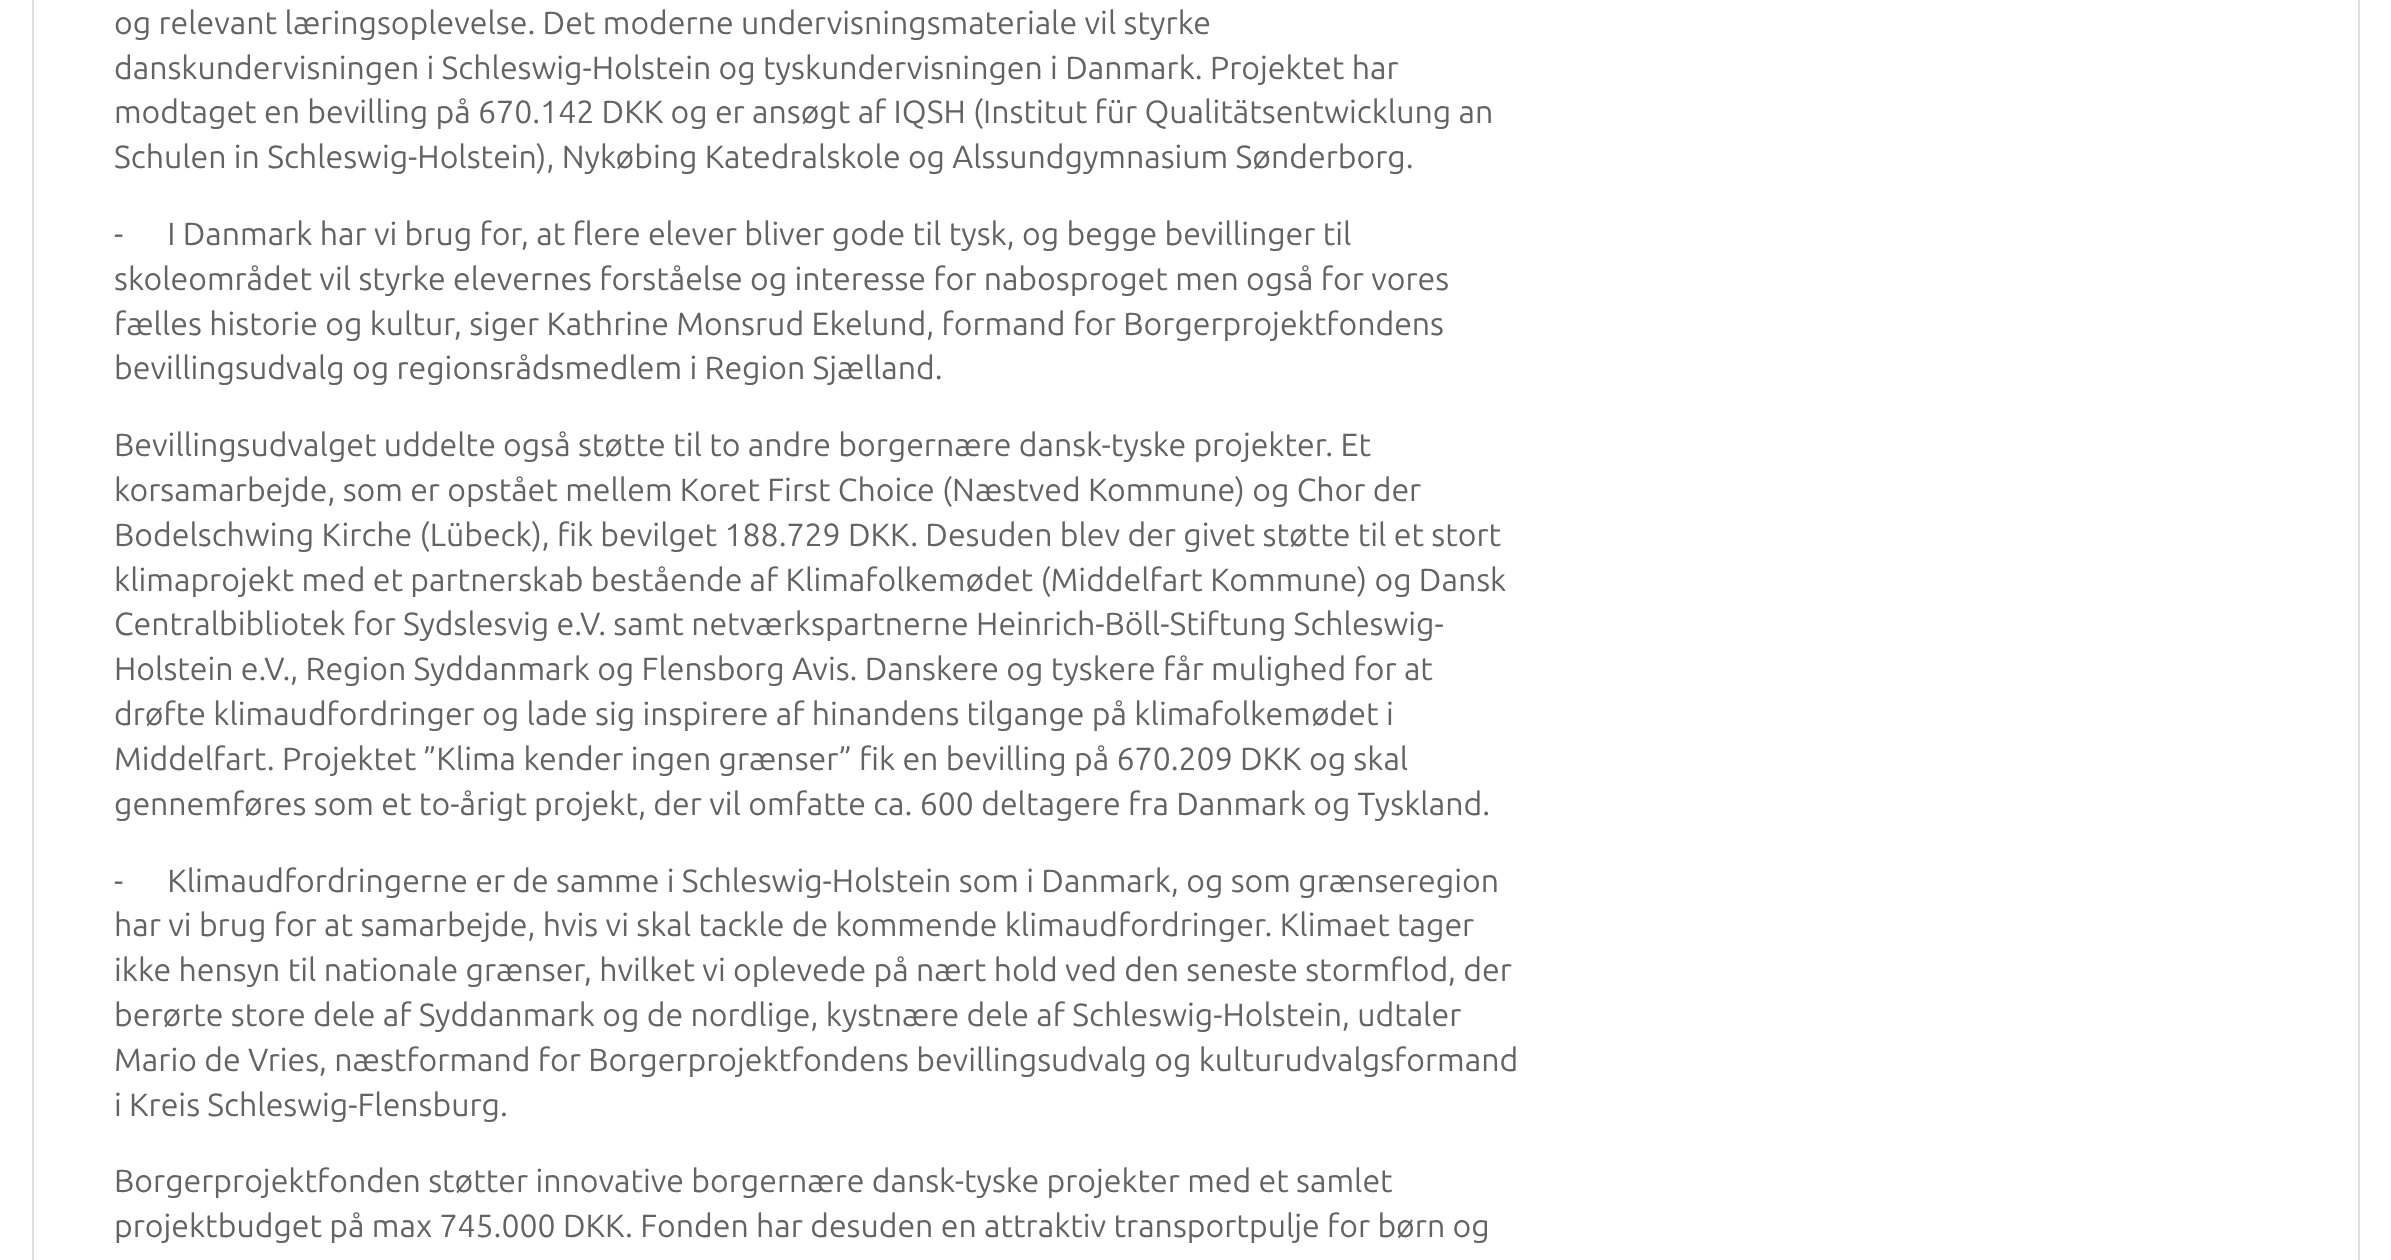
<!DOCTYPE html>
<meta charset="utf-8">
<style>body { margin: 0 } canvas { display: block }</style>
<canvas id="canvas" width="2391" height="1260"></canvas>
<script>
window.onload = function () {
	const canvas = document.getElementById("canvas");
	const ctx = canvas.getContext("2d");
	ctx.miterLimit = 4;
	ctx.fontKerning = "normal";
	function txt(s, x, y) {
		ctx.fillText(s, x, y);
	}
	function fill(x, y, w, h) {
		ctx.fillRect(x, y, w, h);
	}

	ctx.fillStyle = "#FFFFFF";
	fill(0, 0, 2391, 1260);
	ctx.fillStyle = "#E0E0E0";
	fill(2358, 0, 2, 1260);
	fill(32, 0, 2, 1260);
	ctx.font = "32px Ubuntu";
	ctx.fillStyle = "#636363";
	txt("og relevant læringsoplevelse. Det moderne undervisningsmateriale vil styrke", 114, 34);
	txt("danskundervisningen i Schleswig-Holstein og tyskundervisningen i Danmark. Projektet har", 114, 79);
	txt("modtaget en bevilling på 670.142 DKK og er ansøgt af IQSH (Institut für Qualitätsentwicklung an", 114, 123);
	txt("Schulen in Schleswig-Holstein), Nykøbing Katedralskole og Alssundgymnasium Sønderborg.", 114, 168);
	txt("-      I Danmark har vi brug for, at flere elever bliver gode til tysk, og begge bevillinger til", 114, 245);
	txt("skoleområdet vil styrke elevernes forståelse og interesse for nabosproget men også for vores", 114, 290);
	txt("fælles historie og kultur, siger Kathrine Monsrud Ekelund, formand for Borgerprojektfondens", 114, 335);
	txt("bevillingsudvalg og regionsrådsmedlem i Region Sjælland.", 114, 379);
	txt("Bevillingsudvalget uddelte også støtte til to andre borgernære dansk-tyske projekter. Et", 114, 456);
	txt("korsamarbejde, som er opstået mellem Koret First Choice (Næstved Kommune) og Chor der", 114, 501);
	txt("Bodelschwing Kirche (Lübeck), fik bevilget 188.729 DKK. Desuden blev der givet støtte til et stort", 114, 546);
	txt("klimaprojekt med et partnerskab bestående af Klimafolkemødet (Middelfart Kommune) og Dansk", 114, 591);
	txt("Centralbibliotek for Sydslesvig e.V. samt netværkspartnerne Heinrich-Böll-Stiftung Schleswig-", 114, 635);
	txt("Holstein e.V., Region Syddanmark og Flensborg Avis. Danskere og tyskere får mulighed for at", 114, 680);
	txt("drøfte klimaudfordringer og lade sig inspirere af hinandens tilgange på klimafolkemødet i", 114, 725);
	txt("Middelfart. Projektet ”Klima kender ingen grænser” fik en bevilling på 670.209 DKK og skal", 114, 770);
	txt("gennemføres som et to-årigt projekt, der vil omfatte ca. 600 deltagere fra Danmark og Tyskland.", 114, 815);
	txt("-      Klimaudfordringerne er de samme i Schleswig-Holstein som i Danmark, og som grænseregion", 114, 892);
	txt("har vi brug for at samarbejde, hvis vi skal tackle de kommende klimaudfordringer. Klimaet tager", 114, 936);
	txt("ikke hensyn til nationale grænser, hvilket vi oplevede på nært hold ved den seneste stormflod, der", 114, 981);
	txt("berørte store dele af Syddanmark og de nordlige, kystnære dele af Schleswig-Holstein, udtaler", 114, 1026);
	txt("Mario de Vries, næstformand for Borgerprojektfondens bevillingsudvalg og kulturudvalgsformand", 114, 1071);
	txt("i Kreis Schleswig-Flensburg.", 114, 1116);
	txt("Borgerprojektfonden støtter innovative borgernære dansk-tyske projekter med et samlet", 114, 1192);
	txt("projektbudget på max 745.000 DKK. Fonden har desuden en attraktiv transportpulje for børn og", 114, 1237);
};
</script>
